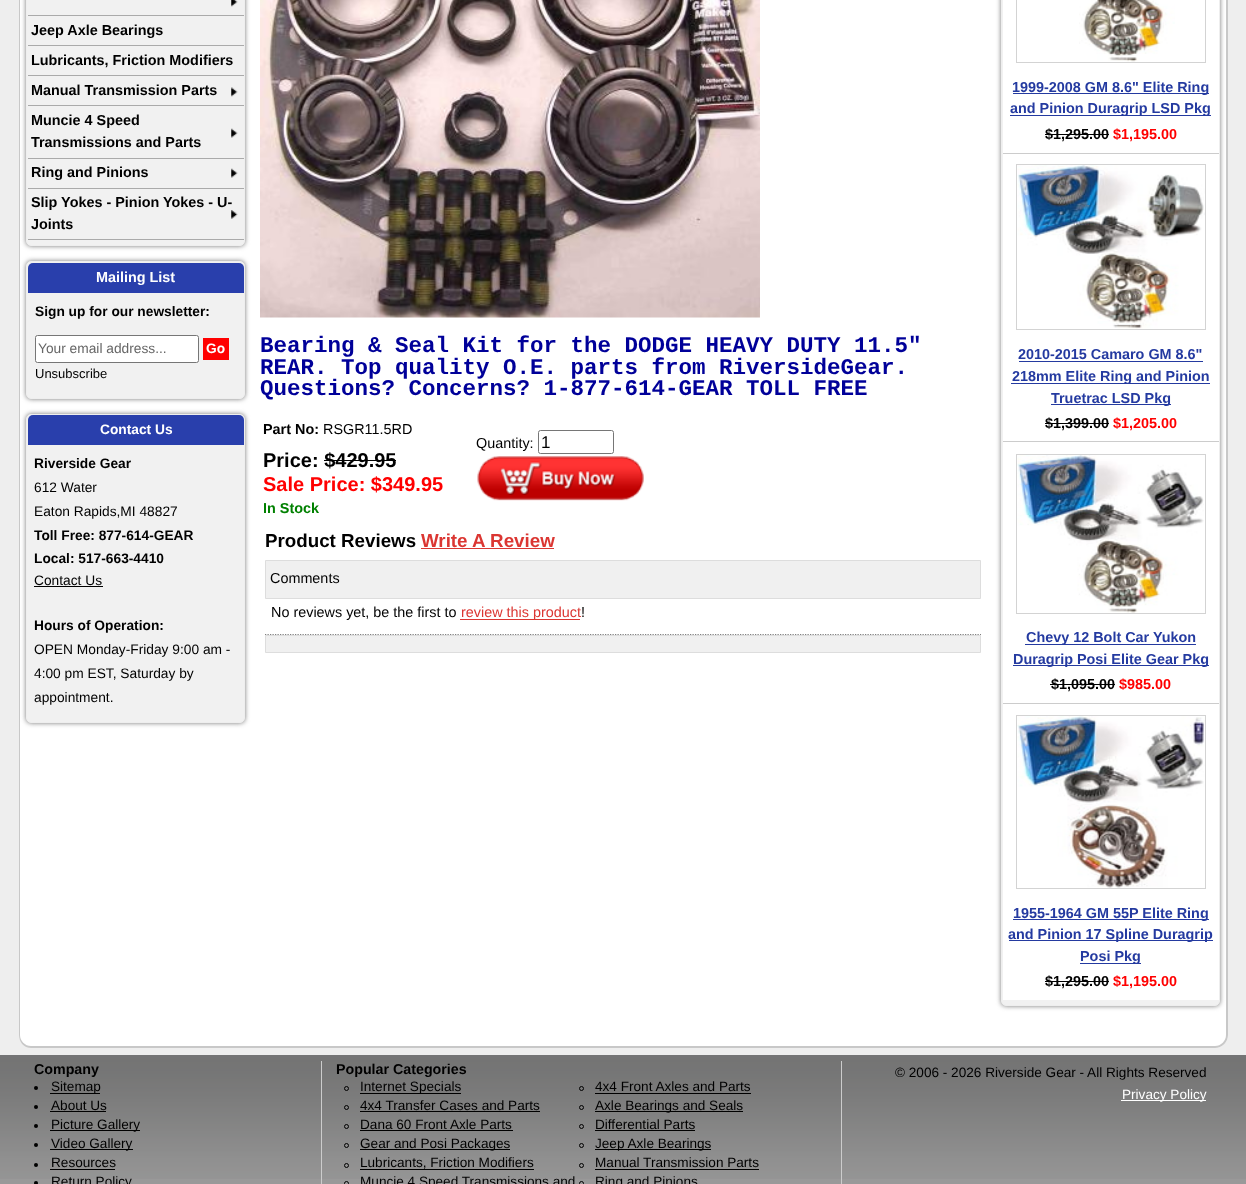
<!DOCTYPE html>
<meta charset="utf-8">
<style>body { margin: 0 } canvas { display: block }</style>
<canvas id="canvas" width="1246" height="1184"></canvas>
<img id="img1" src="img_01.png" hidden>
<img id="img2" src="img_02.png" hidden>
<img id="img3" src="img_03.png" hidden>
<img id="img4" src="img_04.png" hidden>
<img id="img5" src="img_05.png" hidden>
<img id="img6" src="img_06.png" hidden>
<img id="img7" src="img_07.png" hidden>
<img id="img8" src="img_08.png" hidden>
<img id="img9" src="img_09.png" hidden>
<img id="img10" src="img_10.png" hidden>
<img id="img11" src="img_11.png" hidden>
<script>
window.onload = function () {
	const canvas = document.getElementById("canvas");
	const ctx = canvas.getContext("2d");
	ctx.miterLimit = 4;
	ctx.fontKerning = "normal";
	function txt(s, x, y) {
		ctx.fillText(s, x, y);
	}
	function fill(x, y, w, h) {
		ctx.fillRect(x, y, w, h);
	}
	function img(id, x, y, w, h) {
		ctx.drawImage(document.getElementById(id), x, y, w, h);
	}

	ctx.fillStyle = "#EEEEEE";
	fill(0, 0, 1246, 1184);
	ctx.fillStyle = "#FFFFFF";
	ctx.beginPath();
	ctx.moveTo(19, -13);
	ctx.lineTo(1228, -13);
	ctx.lineTo(1228, 1035);
	ctx.bezierCurveTo(1228, 1042, 1222, 1048, 1215, 1048);
	ctx.lineTo(32, 1048);
	ctx.bezierCurveTo(25, 1048, 19, 1042, 19, 1035);
	ctx.closePath();
	ctx.fill();
	ctx.fillStyle = "#C8C8C8";
	ctx.beginPath();
	ctx.moveTo(19, -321);
	ctx.lineTo(1228, -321);
	ctx.lineTo(1228, 1035);
	ctx.bezierCurveTo(1228, 1042, 1222, 1048, 1215, 1048);
	ctx.lineTo(31, 1048);
	ctx.bezierCurveTo(24, 1048, 19, 1042, 19, 1035);
	ctx.closePath();
	ctx.moveTo(20, -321);
	ctx.lineTo(1226, -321);
	ctx.lineTo(1226, 1035);
	ctx.bezierCurveTo(1226, 1041, 1221, 1046, 1215, 1046);
	ctx.lineTo(31, 1046);
	ctx.bezierCurveTo(25, 1046, 20, 1041, 20, 1035);
	ctx.closePath();
	ctx.fill("evenodd");
	ctx.fillStyle = "#777777";
	ctx.filter = "blur(2.5px)";
	ctx.beginPath();
	ctx.roundRect(26, -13, 219, 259, 5);
	ctx.fill();
	ctx.filter = "none";
	ctx.fillStyle = "#F1F1F1";
	ctx.beginPath();
	ctx.roundRect(26.5, -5.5, 218, 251, 4.5);
	ctx.fill();
	ctx.strokeStyle = "#EEEEEE";
	ctx.stroke();
	img("img1", 231, 0, 7, 7);
	ctx.fillStyle = "#AAAAAA";
	fill(28, 15, 216, 1);
	fill(28, 45, 216, 1);
	fill(28, 75, 216, 1);
	img("img2", 231, 87, 7, 10);
	fill(28, 105, 216, 1);
	img("img3", 231, 128, 7, 10);
	fill(28, 158, 216, 1);
	img("img3", 231, 168, 7, 10);
	fill(28, 188, 216, 1);
	img("img4", 231, 210, 7, 9);
	fill(28, 239, 216, 1);
	ctx.fillStyle = "#777777";
	ctx.filter = "blur(2.5px)";
	ctx.beginPath();
	ctx.roundRect(26, 261, 219, 138, 5);
	ctx.fill();
	ctx.filter = "none";
	ctx.fillStyle = "#F1F1F1";
	ctx.beginPath();
	ctx.roundRect(26.5, 261.5, 218, 137, 4.5);
	ctx.fill();
	ctx.stroke();
	ctx.fillStyle = "#293FAC";
	ctx.beginPath();
	ctx.roundRect(28, 263, 216, 30, [5, 5, 0, 0]);
	ctx.fill();
	ctx.fillStyle = "#FFFFFF";
	ctx.beginPath();
	ctx.roundRect(35.5, 335.5, 163, 27, 2);
	ctx.fill();
	ctx.strokeStyle = "#767676";
	ctx.stroke();
	ctx.fillStyle = "#FF0000";
	fill(203, 338, 26, 22);
	ctx.fillStyle = "#777777";
	ctx.filter = "blur(2.5px)";
	ctx.beginPath();
	ctx.roundRect(26, 414, 219, 309, 5);
	ctx.fill();
	ctx.filter = "none";
	ctx.fillStyle = "#F1F1F1";
	ctx.beginPath();
	ctx.roundRect(26.5, 414.5, 218, 308, 4.5);
	ctx.fill();
	ctx.strokeStyle = "#EEEEEE";
	ctx.stroke();
	ctx.fillStyle = "#293FAC";
	ctx.beginPath();
	ctx.roundRect(28, 415, 216, 30, [5, 5, 0, 0]);
	ctx.fill();
	ctx.fillStyle = "#000000";
	fill(34, 586, 69, 1);
	img("img5", 260, 0, 500, 318);
	fill(324, 460, 72, 1);
	ctx.beginPath();
	ctx.roundRect(538.5, 430.5, 75, 23, 2);
	ctx.strokeStyle = "#767676";
	ctx.stroke();
	img("img6", 477, 456, 167, 45);
	ctx.fillStyle = "#DB3632";
	fill(421, 548, 133, 1);
	ctx.fillStyle = "#F0F0F0";
	ctx.beginPath();
	ctx.rect(265.5, 560.5, 715, 38);
	ctx.fill();
	ctx.strokeStyle = "#DDDDDD";
	ctx.stroke();
	ctx.beginPath();
	ctx.moveTo(265, 634.5);
	ctx.lineTo(981, 634.5);
	ctx.strokeStyle = "#808080";
	ctx.lineWidth = 1.2;
	ctx.setLineDash([1.25, 1.25]);
	ctx.stroke();
	ctx.fillStyle = "#DB3632";
	fill(460, 619, 120, 1);
	ctx.fillStyle = "#F0F0F0";
	ctx.beginPath();
	ctx.rect(265.5, 635.5, 715, 17);
	ctx.fill();
	ctx.strokeStyle = "#DDDDDD";
	ctx.lineWidth = 1;
	ctx.setLineDash([]);
	ctx.stroke();
	ctx.fillStyle = "#777777";
	ctx.filter = "blur(2.5px)";
	ctx.beginPath();
	ctx.roundRect(1001, -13, 219, 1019, 5);
	ctx.fill();
	ctx.filter = "none";
	ctx.fillStyle = "#F1F1F1";
	ctx.beginPath();
	ctx.roundRect(1001.5, -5.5, 218, 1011, 4.5);
	ctx.fill();
	ctx.strokeStyle = "#EEEEEE";
	ctx.stroke();
	ctx.fillStyle = "#FFFFFF";
	fill(1003, 0, 216, 153);
	ctx.strokeStyle = "#D3D3D3";
	ctx.strokeRect(1016.5, -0.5, 189, 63);
	img("img7", 1079, 0, 96, 62);
	ctx.fillStyle = "#243AA0";
	fill(1013, 93, 196, 1);
	fill(1010, 115, 201, 1);
	ctx.fillStyle = "#000000";
	fill(1045, 134, 64, 1);
	ctx.fillStyle = "#FFFFFF";
	fill(1003, 154, 216, 287);
	ctx.fillStyle = "#CCCCCC";
	fill(1003, 153, 216, 1);
	ctx.strokeRect(1016.5, 164.5, 189, 165);
	img("img8", 1017, 165, 188, 164);
	ctx.fillStyle = "#243AA0";
	fill(1019, 361, 184, 1);
	fill(1011, 383, 199, 1);
	fill(1051, 404, 120, 1);
	ctx.fillStyle = "#000000";
	fill(1045, 423, 64, 1);
	ctx.fillStyle = "#FFFFFF";
	fill(1003, 442, 216, 261);
	ctx.fillStyle = "#CCCCCC";
	fill(1003, 441, 216, 1);
	ctx.strokeRect(1016.5, 454.5, 189, 159);
	img("img9", 1017, 455, 187, 158);
	ctx.fillStyle = "#243AA0";
	fill(1025, 644, 171, 1);
	fill(1013, 665, 196, 1);
	ctx.fillStyle = "#000000";
	fill(1050, 684, 65, 1);
	ctx.fillStyle = "#FFFFFF";
	fill(1003, 704, 216, 296);
	ctx.fillStyle = "#CCCCCC";
	fill(1003, 703, 216, 1);
	ctx.strokeRect(1016.5, 715.5, 189, 173);
	img("img10", 1017, 716, 188, 172);
	ctx.fillStyle = "#243AA0";
	fill(1013, 919, 196, 1);
	fill(1009, 940, 204, 1);
	fill(1080, 963, 61, 1);
	ctx.fillStyle = "#000000";
	fill(1045, 981, 64, 1);
	ctx.fillStyle = "#999999";
	fill(0, 1179, 1246, 5);
	img("img11", 0, 1055, 1246, 124);
	ctx.fillStyle = "#CCCCCC";
	fill(321, 1061, 1, 123);
	ctx.fillStyle = "#000000";
	ctx.beginPath();
	ctx.arc(36, 1088, 2, 0, Math.PI * 2);
	ctx.fill();
	fill(50, 1093, 50, 1);
	ctx.beginPath();
	ctx.arc(36, 1107, 2, 0, Math.PI * 2);
	ctx.fill();
	fill(50, 1111, 56, 1);
	ctx.beginPath();
	ctx.arc(36, 1126, 2, 0, Math.PI * 2);
	ctx.fill();
	fill(50, 1130, 90, 1);
	ctx.beginPath();
	ctx.arc(36, 1145, 2, 0, Math.PI * 2);
	ctx.fill();
	fill(50, 1149, 83, 1);
	ctx.beginPath();
	ctx.arc(36, 1165, 2, 0, Math.PI * 2);
	ctx.fill();
	fill(50, 1169, 65, 1);
	ctx.beginPath();
	ctx.arc(36, 1183, 2, 0, Math.PI * 2);
	ctx.fill();
	ctx.fillStyle = "#CCCCCC";
	fill(841, 1061, 1, 123);
	ctx.beginPath();
	ctx.arc(346.5, 1088.5, 2, 0, Math.PI * 2);
	ctx.strokeStyle = "#000000";
	ctx.stroke();
	ctx.fillStyle = "#000000";
	fill(360, 1093, 101, 1);
	ctx.beginPath();
	ctx.arc(581.5, 1088.5, 2, 0, Math.PI * 2);
	ctx.stroke();
	fill(595, 1093, 156, 1);
	ctx.beginPath();
	ctx.arc(346.5, 1107.5, 2, 0, Math.PI * 2);
	ctx.stroke();
	fill(360, 1111, 180, 1);
	ctx.beginPath();
	ctx.arc(581.5, 1107.5, 2, 0, Math.PI * 2);
	ctx.stroke();
	fill(595, 1111, 148, 1);
	ctx.beginPath();
	ctx.arc(346.5, 1126.5, 2, 0, Math.PI * 2);
	ctx.stroke();
	fill(360, 1130, 153, 1);
	ctx.beginPath();
	ctx.arc(581.5, 1126.5, 2, 0, Math.PI * 2);
	ctx.stroke();
	fill(595, 1130, 100, 1);
	ctx.beginPath();
	ctx.arc(346.5, 1145.5, 2, 0, Math.PI * 2);
	ctx.stroke();
	fill(360, 1149, 150, 1);
	ctx.beginPath();
	ctx.arc(581.5, 1145.5, 2, 0, Math.PI * 2);
	ctx.stroke();
	fill(595, 1149, 116, 1);
	ctx.beginPath();
	ctx.arc(346.5, 1165.5, 2, 0, Math.PI * 2);
	ctx.stroke();
	fill(360, 1169, 174, 1);
	ctx.beginPath();
	ctx.arc(581.5, 1165.5, 2, 0, Math.PI * 2);
	ctx.stroke();
	fill(595, 1169, 164, 1);
	ctx.beginPath();
	ctx.arc(346.5, 1183.5, 2, 0, Math.PI * 2);
	ctx.stroke();
	ctx.beginPath();
	ctx.arc(581.5, 1183.5, 2, 0, Math.PI * 2);
	ctx.stroke();
	ctx.fillStyle = "#FFFFFF";
	fill(1121, 1100, 85, 1);
	ctx.font = "bold 14.4px Liberation Sans";
	ctx.fillStyle = "#000000";
	txt("Jeep Axle Bearings", 31, 35);
	txt("Lubricants, Friction Modifiers", 31, 65);
	txt("Manual Transmission Parts", 31, 95);
	txt("Muncie 4 Speed", 31, 125);
	txt("Transmissions and Parts", 31, 147);
	txt("Ring and Pinions", 31, 177);
	txt("Slip Yokes - Pinion Yokes - U-", 31, 207);
	txt("Joints", 31, 229);
	ctx.fillStyle = "#FFFFFF";
	txt("Mailing List", 96, 282);
	ctx.font = "bold 13.75px Liberation Sans";
	ctx.fillStyle = "#000000";
	txt("Sign up for our newsletter:", 35, 316);
	ctx.font = "13.75px Liberation Sans";
	ctx.fillStyle = "#666666";
	txt("Your email address...", 38, 353);
	ctx.font = "bold 13.75px Liberation Sans";
	ctx.fillStyle = "#FFFFFF";
	txt("Go", 206, 353);
	ctx.font = "13px Liberation Sans";
	ctx.fillStyle = "#000000";
	txt("Unsubscribe", 35, 378);
	ctx.font = "bold 13.75px Liberation Sans";
	ctx.fillStyle = "#FFFFFF";
	txt("Contact Us", 100, 434);
	ctx.fillStyle = "#000000";
	txt("Riverside Gear", 34, 468);
	ctx.font = "13.75px Liberation Sans";
	txt("612 Water", 34, 492);
	txt("Eaton Rapids,MI 48827", 34, 516);
	ctx.font = "bold 13.75px Liberation Sans";
	txt("Toll Free: 877-614-GEAR", 34, 540);
	txt("Local: 517-663-4410", 34, 563);
	ctx.font = "13.75px Liberation Sans";
	txt("Contact Us", 34, 585);
	ctx.font = "bold 13.75px Liberation Sans";
	txt("Hours of Operation:", 34, 630);
	ctx.font = "13.75px Liberation Sans";
	txt("OPEN Monday-Friday 9:00 am -", 34, 654);
	txt("4:00 pm EST, Saturday by", 34, 678);
	txt("appointment.", 34, 702);
	ctx.font = "bold 22.5px Liberation Mono";
	ctx.fillStyle = "#000099";
	txt("Bearing & Seal Kit for the DODGE HEAVY DUTY 11.5\"", 260, 352);
	txt("REAR. Top quality O.E. parts from RiversideGear.", 260, 374);
	txt("Questions? Concerns? 1-877-614-GEAR TOLL FREE", 260, 395);
	ctx.font = "bold 14.4px Liberation Sans";
	ctx.fillStyle = "#000000";
	txt("Part No:", 263, 434);
	ctx.font = "14.4px Liberation Sans";
	txt("RSGR11.5RD", 323, 434);
	ctx.font = "bold 20px Liberation Sans";
	txt("Price: $429.95", 263, 467);
	ctx.fillStyle = "#FF0000";
	txt("Sale Price: $349.95", 263, 491);
	ctx.font = "bold 14.4px Liberation Sans";
	ctx.fillStyle = "#008000";
	txt("In Stock", 263, 513);
	ctx.font = "14.4px Liberation Sans";
	ctx.fillStyle = "#000000";
	txt("Quantity:", 476, 448);
	ctx.font = "17px Liberation Sans";
	txt("1", 541, 448);
	ctx.font = "bold 18.75px Liberation Sans";
	txt("Product Reviews", 265, 547);
	ctx.fillStyle = "#DB3632";
	txt("Write A Review", 421, 547);
	ctx.font = "14.4px Liberation Sans";
	ctx.fillStyle = "#000000";
	txt("Comments", 270, 583);
	txt("No reviews yet, be the first to", 271, 617);
	ctx.fillStyle = "#DB3632";
	txt("review this product", 461, 617);
	ctx.fillStyle = "#000000";
	txt("!", 581, 617);
	ctx.font = "bold 14.4px Liberation Sans";
	ctx.fillStyle = "#243AA0";
	txt("1999-2008 GM 8.6\" Elite Ring", 1012, 92);
	txt("and Pinion Duragrip LSD Pkg", 1010, 113);
	ctx.fillStyle = "#000000";
	txt("$1,295.00", 1045, 139);
	ctx.fillStyle = "#FF0000";
	txt("$1,195.00", 1113, 139);
	ctx.fillStyle = "#243AA0";
	txt("2010-2015 Camaro GM 8.6\"", 1018, 359);
	txt("218mm Elite Ring and Pinion", 1012, 381);
	txt("Truetrac LSD Pkg", 1051, 403);
	ctx.fillStyle = "#000000";
	txt("$1,399.00", 1045, 428);
	ctx.fillStyle = "#FF0000";
	txt("$1,205.00", 1113, 428);
	ctx.fillStyle = "#243AA0";
	txt("Chevy 12 Bolt Car Yukon", 1026, 642);
	txt("Duragrip Posi Elite Gear Pkg", 1013, 664);
	ctx.fillStyle = "#000000";
	txt("$1,095.00", 1051, 689);
	ctx.fillStyle = "#FF0000";
	txt("$985.00", 1119, 689);
	ctx.fillStyle = "#243AA0";
	txt("1955-1964 GM 55P Elite Ring", 1013, 918);
	txt("and Pinion 17 Spline Duragrip", 1008, 939);
	txt("Posi Pkg", 1080, 961);
	ctx.fillStyle = "#000000";
	txt("$1,295.00", 1045, 986);
	ctx.fillStyle = "#FF0000";
	txt("$1,195.00", 1113, 986);
	ctx.font = "bold 14.25px Liberation Sans";
	ctx.fillStyle = "#000000";
	txt("Company", 34, 1074);
	ctx.font = "13.6px Liberation Sans";
	txt("Sitemap", 51, 1091);
	txt("About Us", 51, 1110);
	txt("Picture Gallery", 51, 1129);
	txt("Video Gallery", 51, 1148);
	txt("Resources", 51, 1167);
	txt("Return Policy", 51, 1186);
	ctx.font = "bold 14.25px Liberation Sans";
	txt("Popular Categories", 336, 1074);
	ctx.font = "13.6px Liberation Sans";
	txt("Internet Specials", 360, 1091);
	txt("4x4 Front Axles and Parts", 595, 1091);
	txt("4x4 Transfer Cases and Parts", 360, 1110);
	txt("Axle Bearings and Seals", 595, 1110);
	txt("Dana 60 Front Axle Parts", 360, 1129);
	txt("Differential Parts", 595, 1129);
	txt("Gear and Posi Packages", 360, 1148);
	txt("Jeep Axle Bearings", 595, 1148);
	txt("Lubricants, Friction Modifiers", 360, 1167);
	txt("Manual Transmission Parts", 595, 1167);
	txt("Muncie 4 Speed Transmissions and", 360, 1186);
	txt("Ring and Pinions", 595, 1186);
	txt("© 2006 - 2026 Riverside Gear - All Rights Reserved", 895, 1077);
	ctx.fillStyle = "#FFFFFF";
	txt("Privacy Policy", 1122, 1099);
};
</script>
